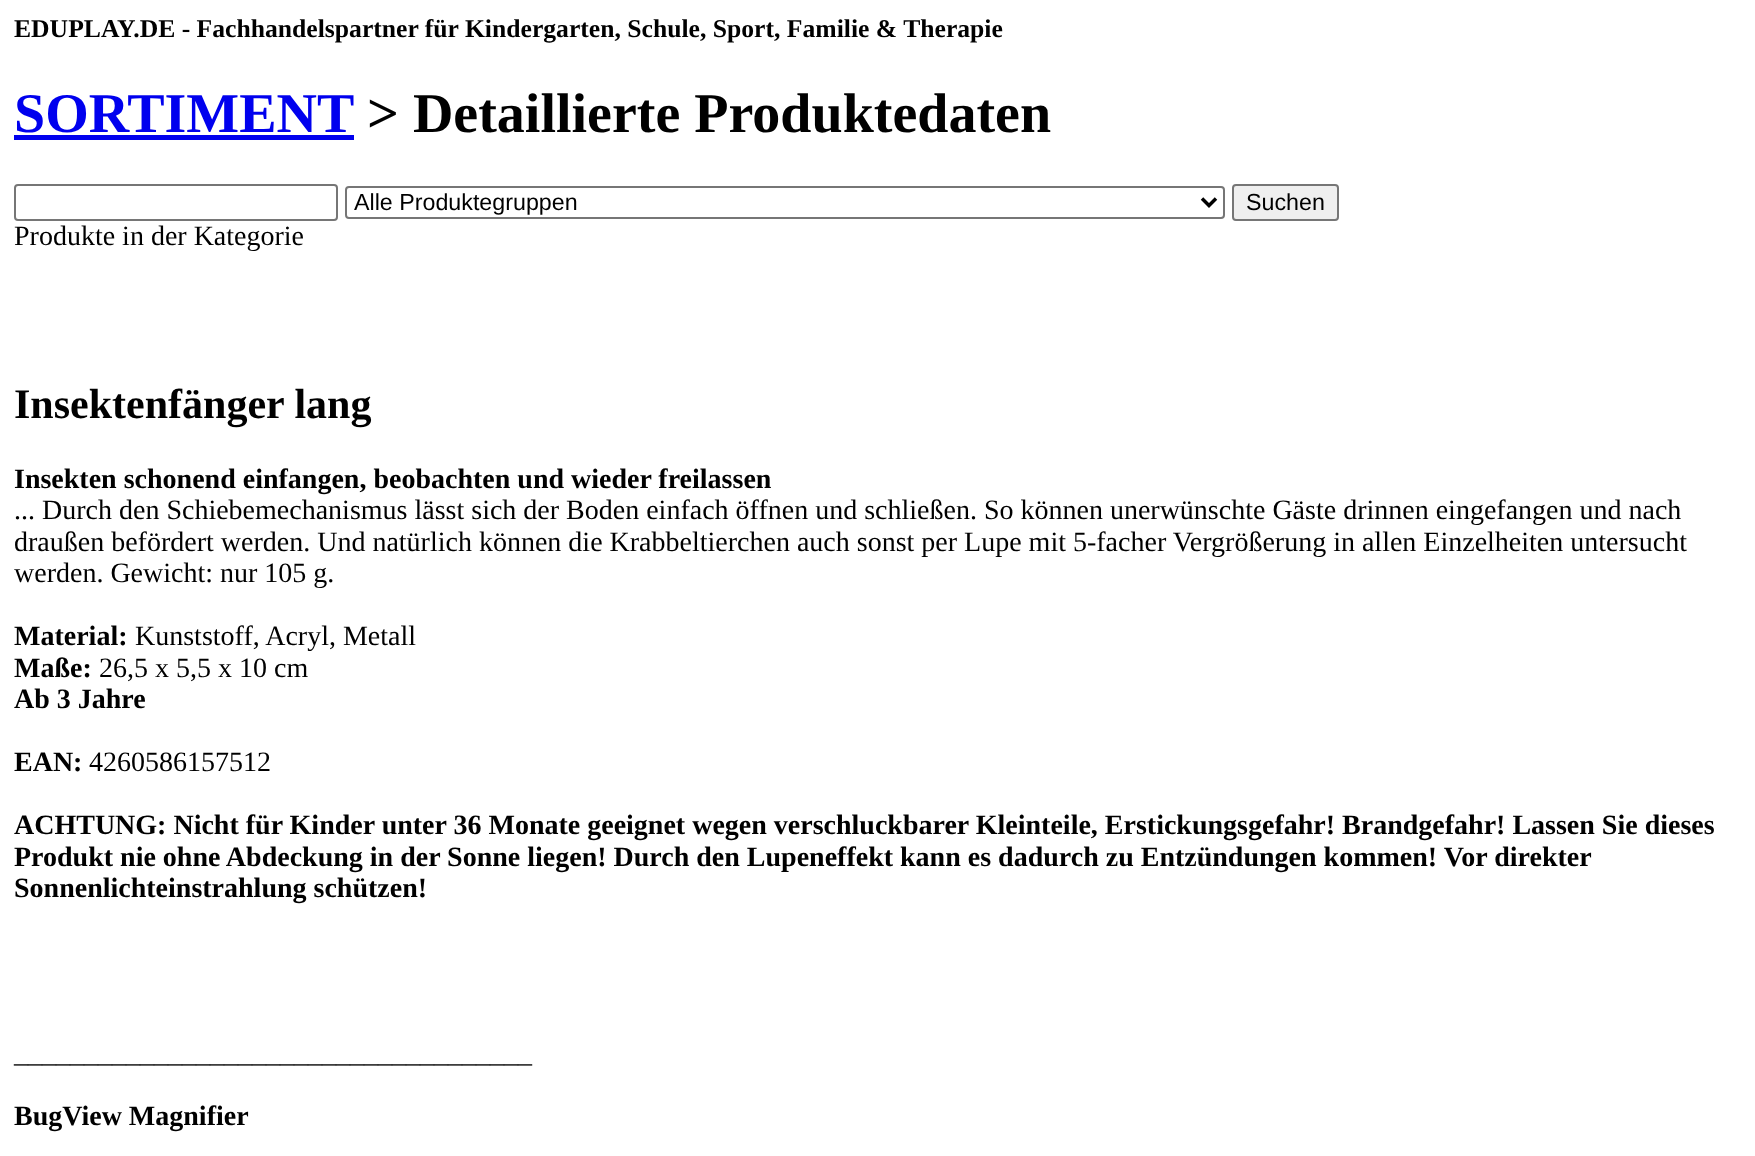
<!DOCTYPE html>
<meta charset="utf-8">
<style>body { margin: 0 } canvas { display: block }</style>
<canvas id="canvas" width="1755" height="1156"></canvas>
<script>
window.onload = function () {
	const canvas = document.getElementById("canvas");
	const ctx = canvas.getContext("2d");
	ctx.miterLimit = 4;
	ctx.fontKerning = "normal";
	function txt(s, x, y) {
		ctx.fillText(s, x, y);
	}
	function fill(x, y, w, h) {
		ctx.fillRect(x, y, w, h);
	}

	ctx.fillStyle = "#FFFFFF";
	fill(0, 0, 1755, 1156);
	ctx.fillStyle = "#0000EE";
	fill(14, 135, 340, 5);
	ctx.beginPath();
	ctx.roundRect(15, 185, 322, 35, 3);
	ctx.strokeStyle = "#767676";
	ctx.lineWidth = 2;
	ctx.stroke();
	ctx.beginPath();
	ctx.roundRect(346, 187, 878, 31, 3);
	ctx.stroke();
	ctx.beginPath();
	ctx.moveTo(1202, 198.5);
	ctx.lineTo(1209, 205.5);
	ctx.lineTo(1216, 198.5);
	ctx.strokeStyle = "#000000";
	ctx.lineWidth = 3.5;
	ctx.stroke();
	ctx.fillStyle = "#EFEFEF";
	ctx.beginPath();
	ctx.roundRect(1233, 185, 105, 35, 3);
	ctx.fill();
	ctx.strokeStyle = "#767676";
	ctx.lineWidth = 2;
	ctx.stroke();
	ctx.font = "bold 25.65px Liberation Serif";
	ctx.fillStyle = "#000000";
	txt("EDUPLAY.DE - Fachhandelspartner für Kindergarten, Schule, Sport, Familie & Therapie", 14, 37);
	ctx.font = "bold 56px Liberation Serif";
	ctx.fillStyle = "#0000EE";
	txt("SORTIMENT", 14, 132);
	ctx.fillStyle = "#000000";
	txt("> Detaillierte Produktedaten", 367, 132);
	ctx.font = "23.25px Liberation Sans";
	txt("Alle Produktegruppen", 354, 210);
	txt("Suchen", 1246, 210);
	ctx.font = "28px Liberation Serif";
	txt("Produkte in der Kategorie", 14, 245);
	ctx.font = "bold 42px Liberation Serif";
	txt("Insektenfänger lang", 14, 418);
	ctx.font = "bold 28px Liberation Serif";
	txt("Insekten schonend einfangen, beobachten und wieder freilassen", 14, 488);
	ctx.font = "28px Liberation Serif";
	txt("... Durch den Schiebemechanismus lässt sich der Boden einfach öffnen und schließen. So können unerwünschte Gäste drinnen eingefangen und nach", 14, 519);
	txt("draußen befördert werden. Und natürlich können die Krabbeltierchen auch sonst per Lupe mit 5-facher Vergrößerung in allen Einzelheiten untersucht", 14, 551);
	txt("werden. Gewicht: nur 105 g.", 14, 582);
	ctx.font = "bold 28px Liberation Serif";
	txt("Material:", 14, 645);
	ctx.font = "28px Liberation Serif";
	txt("Kunststoff, Acryl, Metall", 135, 645);
	ctx.font = "bold 28px Liberation Serif";
	txt("Maße:", 14, 677);
	ctx.font = "28px Liberation Serif";
	txt("26,5 x 5,5 x 10 cm", 99, 677);
	ctx.font = "bold 28px Liberation Serif";
	txt("Ab 3 Jahre", 14, 708);
	txt("EAN:", 14, 771);
	ctx.font = "28px Liberation Serif";
	txt("4260586157512", 89, 771);
	ctx.font = "bold 28px Liberation Serif";
	txt("ACHTUNG: Nicht für Kinder unter 36 Monate geeignet wegen verschluckbarer Kleinteile, Erstickungsgefahr! Brandgefahr! Lassen Sie dieses", 14, 834);
	txt("Produkt nie ohne Abdeckung in der Sonne liegen! Durch den Lupeneffekt kann es dadurch zu Entzündungen kommen! Vor direkter", 14, 866);
	txt("Sonnenlichteinstrahlung schützen!", 14, 897);
	ctx.font = "28px Liberation Serif";
	txt("_____________________________________", 14, 1062);
	ctx.font = "bold 28px Liberation Serif";
	txt("BugView Magnifier", 14, 1125);
};
</script>
